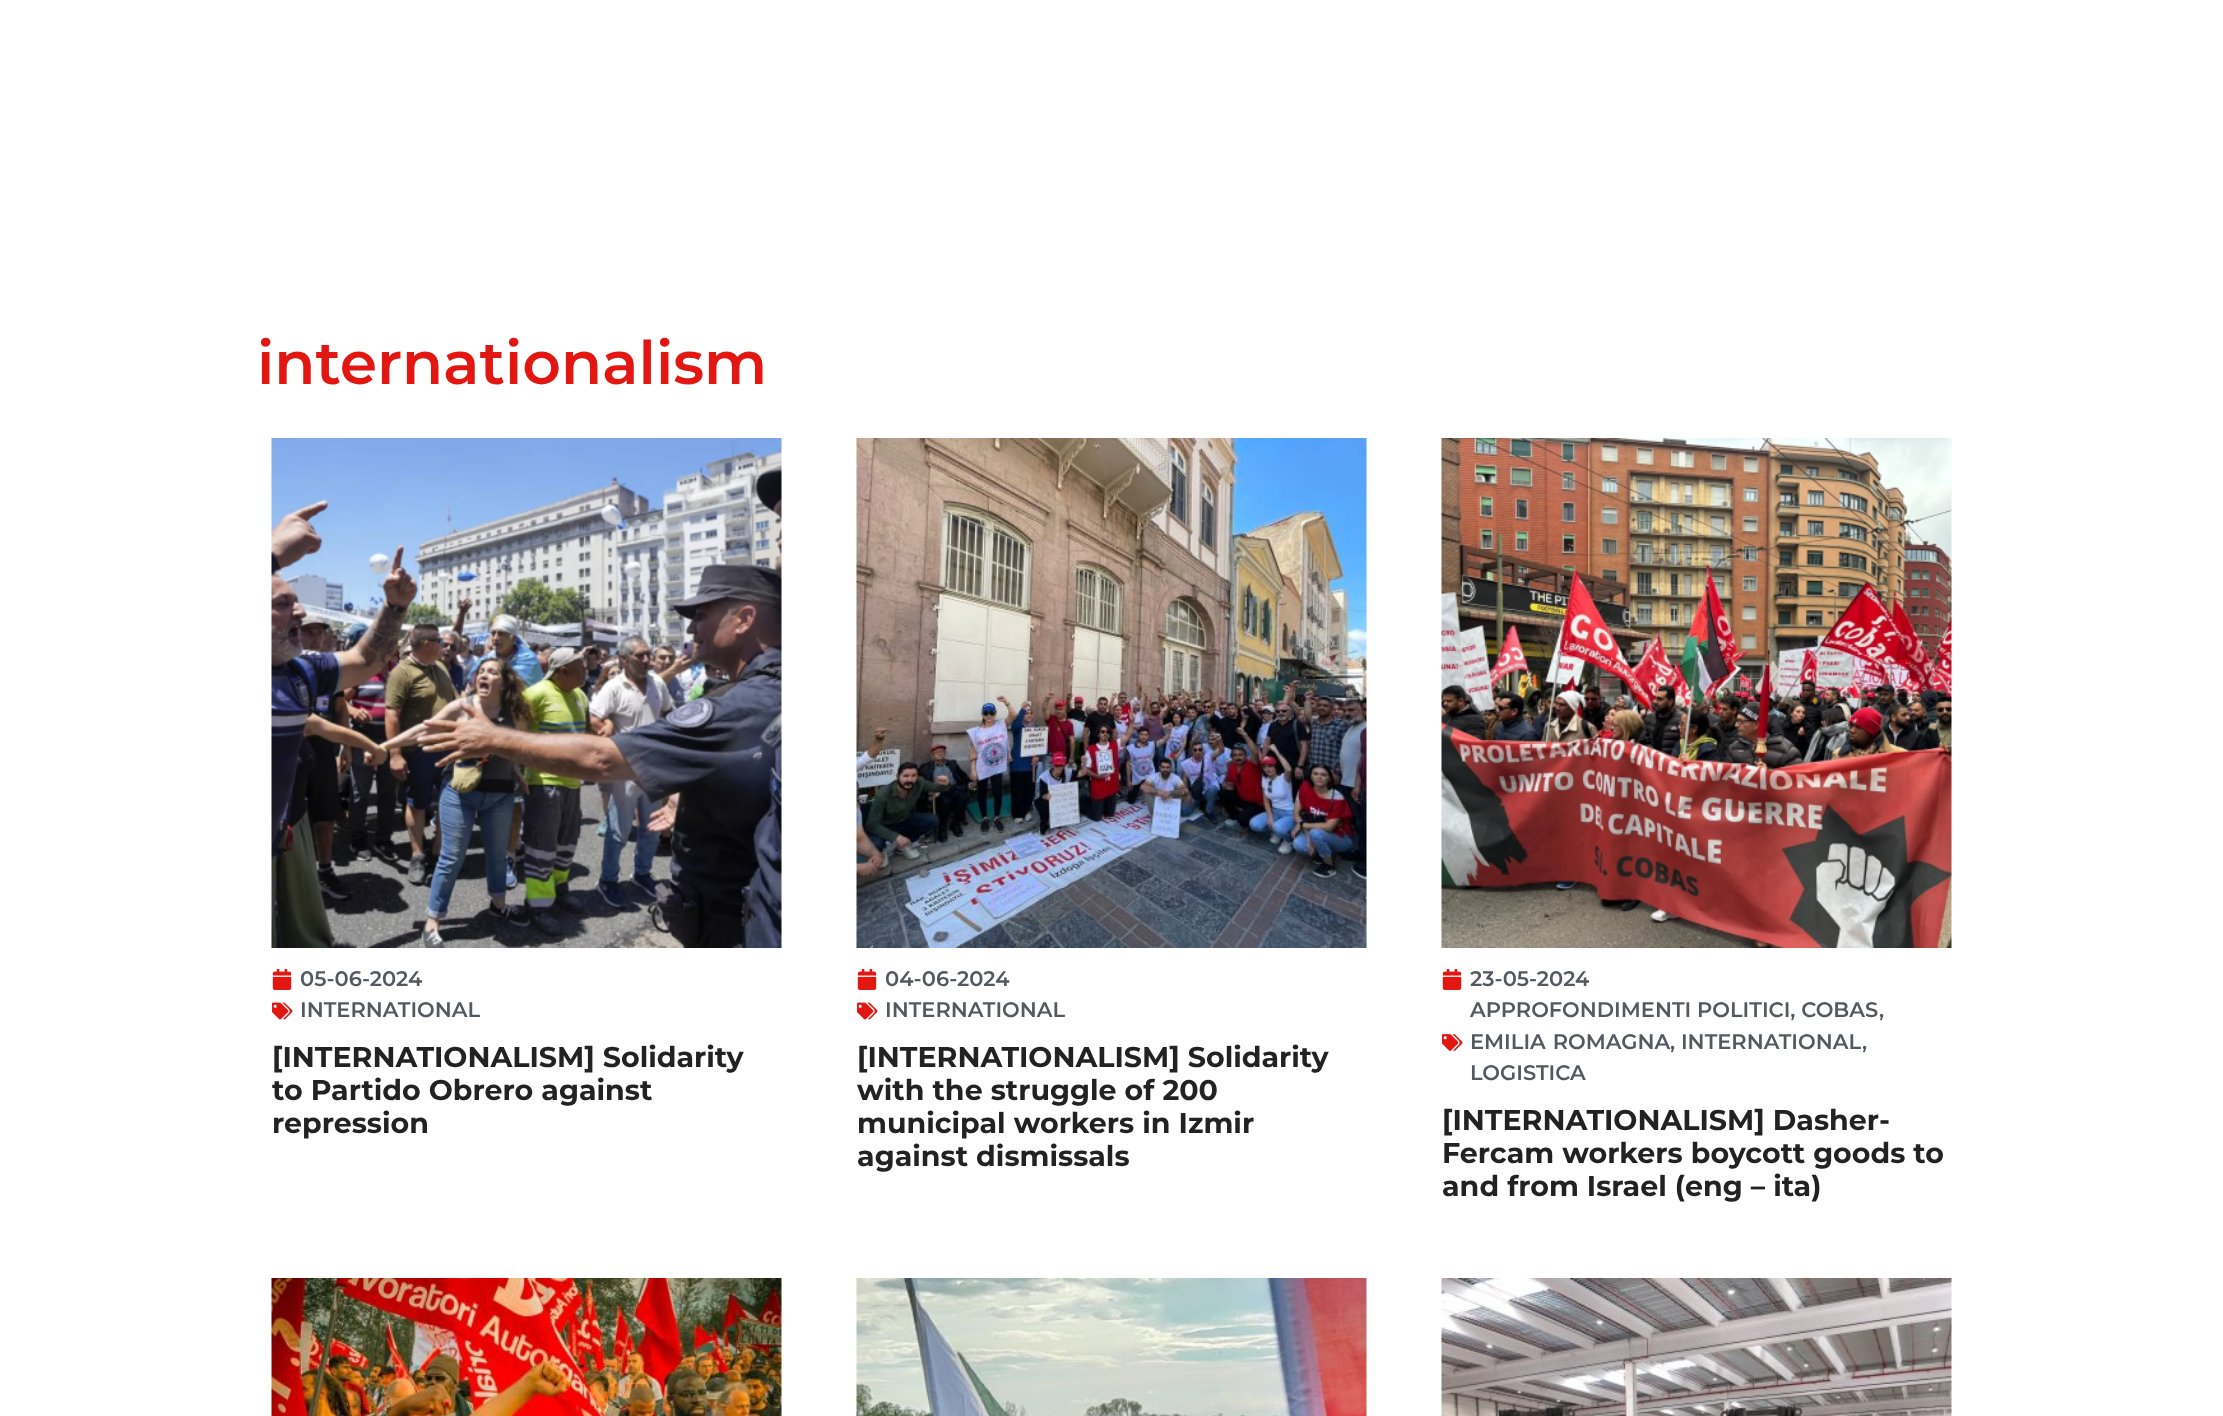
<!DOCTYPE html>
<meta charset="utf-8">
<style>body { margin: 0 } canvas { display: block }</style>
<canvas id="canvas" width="2223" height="1416"></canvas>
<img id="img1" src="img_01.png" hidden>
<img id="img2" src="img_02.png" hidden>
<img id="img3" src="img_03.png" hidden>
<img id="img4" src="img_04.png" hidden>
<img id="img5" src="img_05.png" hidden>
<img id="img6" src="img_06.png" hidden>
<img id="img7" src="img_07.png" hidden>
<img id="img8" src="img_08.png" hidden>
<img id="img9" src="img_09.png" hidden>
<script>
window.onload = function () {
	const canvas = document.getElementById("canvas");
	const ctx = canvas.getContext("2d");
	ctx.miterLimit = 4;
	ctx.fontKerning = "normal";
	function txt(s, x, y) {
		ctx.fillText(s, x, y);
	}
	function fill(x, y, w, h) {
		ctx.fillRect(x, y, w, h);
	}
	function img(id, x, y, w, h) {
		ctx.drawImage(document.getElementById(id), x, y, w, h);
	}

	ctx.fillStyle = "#FFFFFF";
	fill(0, 0, 2223, 1416);
	img("img1", 271, 438, 511, 510);
	img("img2", 272, 969, 20, 21);
	img("img3", 272, 1002, 21, 18);
	img("img4", 856, 438, 511, 510);
	img("img2", 857, 969, 20, 21);
	img("img3", 857, 1002, 21, 18);
	img("img5", 1441, 438, 511, 510);
	img("img2", 1442, 969, 20, 21);
	img("img6", 1442, 1034, 21, 17);
	img("img7", 271, 1278, 511, 138);
	img("img8", 856, 1278, 511, 138);
	img("img9", 1441, 1278, 511, 138);
	ctx.font = "600 60px Montserrat";
	ctx.fillStyle = "#E21712";
	txt("internationalism", 257, 384);
	ctx.font = "600 21px Montserrat";
	ctx.fillStyle = "#54595F";
	txt("05-06-2024", 300, 986);
	txt("INTERNATIONAL", 300, 1017);
	ctx.font = "bold 28.5px Montserrat";
	ctx.fillStyle = "#222222";
	txt("[INTERNATIONALISM] Solidarity", 272, 1067);
	txt("to Partido Obrero against", 272, 1100);
	txt("repression", 272, 1133);
	ctx.font = "600 21px Montserrat";
	ctx.fillStyle = "#54595F";
	txt("04-06-2024", 885, 986);
	txt("INTERNATIONAL", 885, 1017);
	ctx.font = "bold 28.5px Montserrat";
	ctx.fillStyle = "#222222";
	txt("[INTERNATIONALISM] Solidarity", 857, 1067);
	txt("with the struggle of 200", 857, 1100);
	txt("municipal workers in Izmir", 857, 1133);
	txt("against dismissals", 857, 1166);
	ctx.font = "600 21px Montserrat";
	ctx.fillStyle = "#54595F";
	txt("23-05-2024", 1470, 986);
	txt("APPROFONDIMENTI POLITICI, COBAS", 1470, 1017);
	txt(",", 1879, 1017);
	ctx.wordSpacing = "1px";
	txt("EMILIA ROMAGNA", 1470, 1049);
	ctx.wordSpacing = "0px";
	txt(", INTERNATIONAL", 1670, 1049);
	txt(",", 1862, 1049);
	txt("LOGISTICA", 1470, 1080);
	ctx.font = "bold 28.5px Montserrat";
	ctx.fillStyle = "#222222";
	txt("[INTERNATIONALISM] Dasher-", 1442, 1130);
	txt("Fercam workers boycott goods to", 1442, 1163);
	txt("and from Israel (eng – ita)", 1442, 1196);
};
</script>
